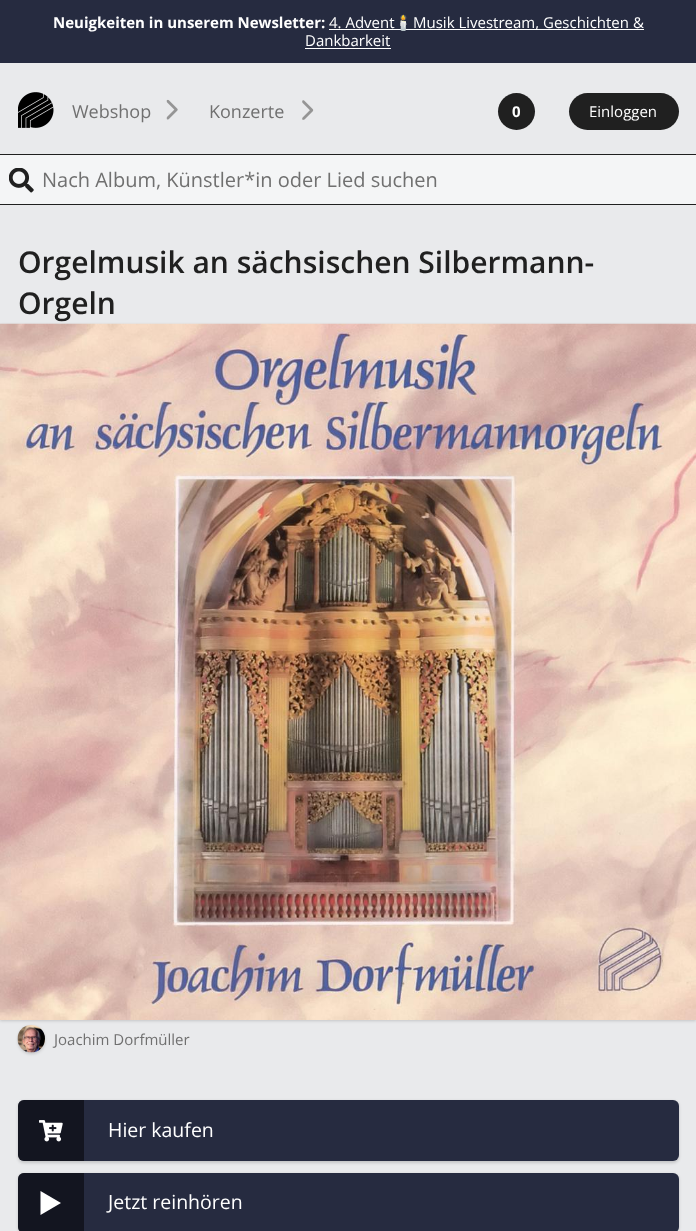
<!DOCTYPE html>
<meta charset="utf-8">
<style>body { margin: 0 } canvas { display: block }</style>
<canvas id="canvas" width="696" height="1231"></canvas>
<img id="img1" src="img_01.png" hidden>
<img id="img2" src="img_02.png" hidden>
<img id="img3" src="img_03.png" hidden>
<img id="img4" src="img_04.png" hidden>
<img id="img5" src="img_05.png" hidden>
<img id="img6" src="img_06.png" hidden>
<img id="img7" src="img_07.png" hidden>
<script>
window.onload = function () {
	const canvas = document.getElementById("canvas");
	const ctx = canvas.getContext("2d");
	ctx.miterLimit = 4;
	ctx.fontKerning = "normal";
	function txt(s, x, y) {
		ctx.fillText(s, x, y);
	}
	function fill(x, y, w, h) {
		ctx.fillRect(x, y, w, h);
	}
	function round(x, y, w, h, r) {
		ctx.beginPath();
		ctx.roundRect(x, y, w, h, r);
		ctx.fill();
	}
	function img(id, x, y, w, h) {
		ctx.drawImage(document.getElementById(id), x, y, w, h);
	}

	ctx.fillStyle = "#262B40";
	fill(0, 0, 696, 1231);
	ctx.fillStyle = "#FFFFFF";
	fill(329, 29, 315, 1);
	fill(305, 48, 86, 1);
	ctx.fillStyle = "#E9EAEC";
	fill(0, 63, 696, 1168);
	img("img1", 18, 92, 36, 36);
	img("img2", 166, 99, 12, 21);
	img("img3", 302, 100, 12, 20);
	ctx.fillStyle = "#202020";
	ctx.beginPath();
	ctx.arc(516.5, 111.5, 18.5, 0, Math.PI * 2);
	ctx.fill();
	round(569, 93, 110, 37, 18.5);
	ctx.fillStyle = "#F4F5F6";
	fill(0, 155, 696, 49);
	img("img4", 9, 168, 25, 25);
	ctx.fillStyle = "#202020";
	fill(0, 154, 696, 1);
	fill(0, 204, 696, 1);
	ctx.fillStyle = "rgba(0, 0, 0, 0.16)";
	ctx.filter = "blur(1.5px)";
	ctx.beginPath();
	ctx.rect(0, 325, 696, 696);
	ctx.fill();
	ctx.filter = "none";
	img("img5", 0, 323, 696, 697);
	ctx.filter = "blur(1.5px)";
	ctx.beginPath();
	ctx.roundRect(18, 1026, 27, 28, 13.5);
	ctx.fill();
	ctx.filter = "none";
	img("img6", 17, 1025, 28, 28);
	ctx.filter = "blur(1.5px)";
	ctx.beginPath();
	ctx.roundRect(18, 1101, 661, 62, 6);
	ctx.fill();
	ctx.filter = "none";
	ctx.fillStyle = "#262B40";
	round(18, 1100, 661, 61, 6);
	ctx.fillStyle = "rgba(0, 0, 0, 0.5)";
	ctx.beginPath();
	ctx.roundRect(18, 1100, 66, 61, [6, 0, 0, 6]);
	ctx.fill();
	img("img7", 39, 1120, 24, 22);
	ctx.fillStyle = "rgba(0, 0, 0, 0.16)";
	ctx.filter = "blur(1.5px)";
	ctx.beginPath();
	ctx.roundRect(18, 1174, 661, 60, 6);
	ctx.fill();
	ctx.filter = "none";
	ctx.fillStyle = "#262B40";
	round(18, 1173, 661, 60, 6);
	ctx.fillStyle = "rgba(0, 0, 0, 0.5)";
	ctx.beginPath();
	ctx.moveTo(24, 1173);
	ctx.lineTo(84, 1173);
	ctx.lineTo(84, 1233);
	ctx.lineTo(24, 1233);
	ctx.bezierCurveTo(20.5, 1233, 18, 1230.5, 18, 1227);
	ctx.lineTo(18, 1179);
	ctx.bezierCurveTo(18, 1175.5, 20.5, 1173, 24, 1173);
	ctx.closePath();
	ctx.fill();
	ctx.fillStyle = "#FFFFFF";
	ctx.beginPath();
	ctx.moveTo(61, 1203);
	ctx.lineTo(40.5, 1215);
	ctx.lineTo(40.5, 1191);
	ctx.closePath();
	ctx.fill();
	ctx.font = "bold 15px Open Sans";
	txt("Neuigkeiten in unserem Newsletter:", 53, 28);
	ctx.font = "15px Open Sans";
	txt("4. Advent", 329, 28);
	ctx.font = "15px Noto Color Emoji";
	txt("🕯️", 394, 28);
	ctx.font = "15px Open Sans";
	txt("Musik Livestream, Geschichten &", 413, 28);
	txt("Dankbarkeit", 305, 46);
	ctx.font = "18px Open Sans";
	ctx.fillStyle = "#707070";
	txt("Webshop", 72, 118);
	txt("Konzerte", 209, 118);
	ctx.font = "bold 15px Open Sans";
	ctx.fillStyle = "#FFFFFF";
	txt("0", 512, 117);
	ctx.font = "15px Open Sans";
	txt("Einloggen", 589, 117);
	ctx.font = "20px Open Sans";
	ctx.fillStyle = "#707070";
	txt("Nach Album, Künstler*in oder Lied suchen", 42, 187);
	ctx.font = "600 30px Open Sans";
	ctx.fillStyle = "#202020";
	txt("Orgelmusik an sächsischen Silbermann-", 18, 273);
	txt("Orgeln", 18, 314);
	ctx.font = "15px Open Sans";
	ctx.fillStyle = "#707070";
	txt("Joachim Dorfmüller", 54, 1045);
	ctx.font = "19.5px Open Sans";
	ctx.fillStyle = "#FFFFFF";
	txt("Hier kaufen", 108, 1137);
	txt("Jetzt reinhören", 108, 1209);
};
</script>
